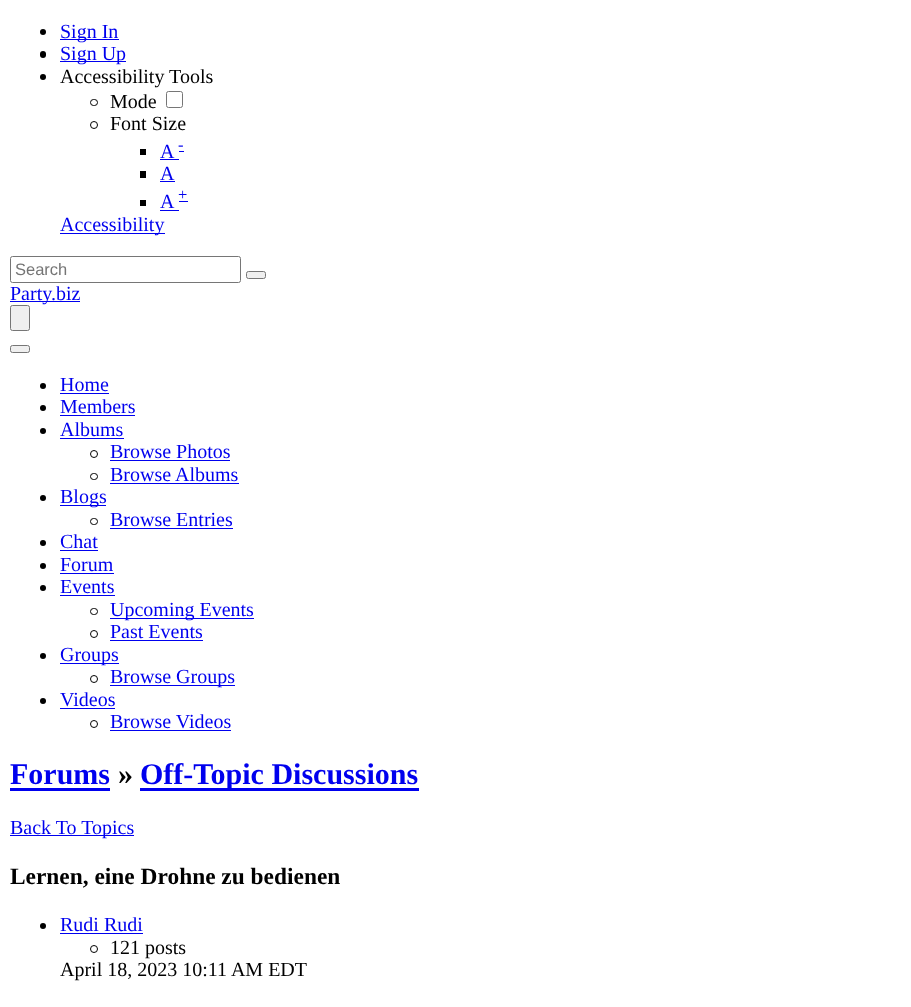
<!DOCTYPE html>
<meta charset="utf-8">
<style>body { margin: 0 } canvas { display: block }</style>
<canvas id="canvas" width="911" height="1007"></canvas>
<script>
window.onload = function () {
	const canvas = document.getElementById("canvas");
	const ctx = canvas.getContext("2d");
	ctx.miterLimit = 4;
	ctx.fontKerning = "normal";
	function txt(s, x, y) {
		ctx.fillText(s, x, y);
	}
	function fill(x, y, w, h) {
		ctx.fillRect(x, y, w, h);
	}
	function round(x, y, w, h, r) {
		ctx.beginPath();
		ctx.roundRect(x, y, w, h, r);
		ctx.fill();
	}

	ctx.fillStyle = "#FFFFFF";
	fill(0, 0, 911, 1007);
	ctx.fillStyle = "#000000";
	ctx.beginPath();
	ctx.arc(43, 32, 3, 0, Math.PI * 2);
	ctx.fill();
	ctx.fillStyle = "#0000EE";
	fill(60, 39, 59, 1);
	ctx.fillStyle = "#000000";
	round(40, 51, 6, 7, 3);
	ctx.fillStyle = "#0000EE";
	fill(60, 61, 66, 1);
	ctx.fillStyle = "#000000";
	ctx.beginPath();
	ctx.arc(43, 77, 3, 0, Math.PI * 2);
	ctx.fill();
	ctx.beginPath();
	ctx.roundRect(90.5, 99.5, 7, 6, 3);
	ctx.strokeStyle = "#000000";
	ctx.stroke();
	ctx.beginPath();
	ctx.roundRect(166.5, 91.5, 16, 16, 2);
	ctx.strokeStyle = "#767676";
	ctx.stroke();
	ctx.beginPath();
	ctx.arc(94, 125, 3.5, 0, Math.PI * 2);
	ctx.strokeStyle = "#000000";
	ctx.stroke();
	ctx.fillStyle = "#0000EE";
	fill(160, 159, 19, 1);
	fill(179, 151, 5, 1);
	ctx.fillStyle = "#000000";
	fill(140, 149, 6, 6);
	fill(140, 171, 6, 7);
	ctx.fillStyle = "#0000EE";
	fill(160, 181, 15, 1);
	ctx.fillStyle = "#000000";
	fill(140, 200, 6, 6);
	ctx.fillStyle = "#0000EE";
	fill(160, 210, 19, 1);
	fill(179, 201, 9, 1);
	fill(60, 233, 105, 1);
	ctx.beginPath();
	ctx.roundRect(10.5, 256.5, 230, 26, 2);
	ctx.strokeStyle = "#767676";
	ctx.stroke();
	ctx.fillStyle = "#EFEFEF";
	ctx.beginPath();
	ctx.roundRect(246.5, 271.5, 19, 7, 2);
	ctx.fill();
	ctx.stroke();
	ctx.fillStyle = "#0000EE";
	fill(10, 301, 70, 1);
	ctx.fillStyle = "#EFEFEF";
	ctx.beginPath();
	ctx.roundRect(10.5, 305.5, 19, 25, 2);
	ctx.fill();
	ctx.stroke();
	ctx.beginPath();
	ctx.roundRect(10.5, 345.5, 19, 7, 2);
	ctx.fill();
	ctx.stroke();
	ctx.fillStyle = "#000000";
	ctx.beginPath();
	ctx.arc(43, 386, 3, 0, Math.PI * 2);
	ctx.fill();
	ctx.fillStyle = "#0000EE";
	fill(60, 393, 49, 1);
	ctx.fillStyle = "#000000";
	ctx.beginPath();
	ctx.arc(43, 408, 3, 0, Math.PI * 2);
	ctx.fill();
	ctx.fillStyle = "#0000EE";
	fill(60, 415, 75, 1);
	ctx.fillStyle = "#000000";
	ctx.beginPath();
	ctx.arc(43, 431, 3, 0, Math.PI * 2);
	ctx.fill();
	ctx.fillStyle = "#0000EE";
	fill(60, 438, 64, 1);
	ctx.beginPath();
	ctx.arc(94, 454, 3.5, 0, Math.PI * 2);
	ctx.strokeStyle = "#000000";
	ctx.stroke();
	fill(110, 460, 120, 1);
	ctx.beginPath();
	ctx.roundRect(90.5, 473.5, 7, 6, 3);
	ctx.stroke();
	fill(110, 483, 129, 1);
	ctx.fillStyle = "#000000";
	ctx.beginPath();
	ctx.arc(43, 498, 3, 0, Math.PI * 2);
	ctx.fill();
	ctx.fillStyle = "#0000EE";
	fill(60, 505, 46, 1);
	ctx.beginPath();
	ctx.roundRect(90.5, 518.5, 7, 6, 3);
	ctx.stroke();
	fill(110, 528, 123, 1);
	ctx.fillStyle = "#000000";
	ctx.beginPath();
	ctx.arc(43, 543, 3, 0, Math.PI * 2);
	ctx.fill();
	ctx.fillStyle = "#0000EE";
	fill(60, 550, 38, 1);
	ctx.fillStyle = "#000000";
	ctx.beginPath();
	ctx.arc(43, 566, 3, 0, Math.PI * 2);
	ctx.fill();
	ctx.fillStyle = "#0000EE";
	fill(60, 573, 54, 1);
	ctx.fillStyle = "#000000";
	ctx.beginPath();
	ctx.arc(43, 588, 3, 0, Math.PI * 2);
	ctx.fill();
	ctx.fillStyle = "#0000EE";
	fill(60, 595, 55, 1);
	ctx.beginPath();
	ctx.roundRect(90.5, 608.5, 7, 6, 3);
	ctx.stroke();
	fill(110, 618, 144, 1);
	ctx.beginPath();
	ctx.arc(94, 634, 3.5, 0, Math.PI * 2);
	ctx.stroke();
	fill(110, 640, 93, 1);
	ctx.fillStyle = "#000000";
	ctx.beginPath();
	ctx.arc(43, 656, 3, 0, Math.PI * 2);
	ctx.fill();
	ctx.fillStyle = "#0000EE";
	fill(60, 663, 59, 1);
	ctx.beginPath();
	ctx.arc(94, 679, 3.5, 0, Math.PI * 2);
	ctx.stroke();
	fill(110, 685, 125, 1);
	ctx.fillStyle = "#000000";
	ctx.beginPath();
	ctx.arc(43, 701, 3, 0, Math.PI * 2);
	ctx.fill();
	ctx.fillStyle = "#0000EE";
	fill(60, 708, 55, 1);
	ctx.beginPath();
	ctx.arc(94, 724, 3.5, 0, Math.PI * 2);
	ctx.stroke();
	fill(110, 730, 121, 1);
	fill(10, 788, 100, 3);
	fill(140, 788, 279, 3);
	fill(10, 835, 124, 1);
	ctx.fillStyle = "#000000";
	ctx.beginPath();
	ctx.arc(43, 926, 3, 0, Math.PI * 2);
	ctx.fill();
	ctx.fillStyle = "#0000EE";
	fill(60, 933, 83, 1);
	ctx.beginPath();
	ctx.arc(94, 949, 3.5, 0, Math.PI * 2);
	ctx.stroke();
	ctx.font = "20px Liberation Serif";
	txt("Sign In", 60, 38);
	txt("Sign Up", 60, 60);
	ctx.fillStyle = "#000000";
	txt("Accessibility Tools", 60, 83);
	txt("Mode", 110, 108);
	txt("Font Size", 110, 130);
	ctx.fillStyle = "#0000EE";
	txt("A", 160, 158);
	ctx.font = "16.5px Liberation Serif";
	txt("-", 178, 150);
	ctx.font = "20px Liberation Serif";
	txt("A", 160, 180);
	txt("A", 160, 208);
	ctx.font = "16.5px Liberation Serif";
	txt("+", 178, 200);
	ctx.font = "20px Liberation Serif";
	txt("Accessibility", 60, 231);
	ctx.font = "16.5px Liberation Sans";
	ctx.fillStyle = "#757575";
	txt("Search", 15, 275);
	ctx.font = "20px Liberation Serif";
	ctx.fillStyle = "#0000EE";
	txt("Party.biz", 10, 300);
	txt("Home", 60, 391);
	txt("Members", 60, 413);
	txt("Albums", 60, 436);
	txt("Browse Photos", 110, 458);
	txt("Browse Albums", 110, 481);
	txt("Blogs", 60, 503);
	txt("Browse Entries", 110, 526);
	txt("Chat", 60, 548);
	txt("Forum", 60, 571);
	txt("Events", 60, 593);
	txt("Upcoming Events", 110, 616);
	txt("Past Events", 110, 638);
	txt("Groups", 60, 661);
	txt("Browse Groups", 110, 683);
	txt("Videos", 60, 706);
	txt("Browse Videos", 110, 728);
	ctx.font = "bold 30px Liberation Serif";
	txt("Forums", 10, 784);
	ctx.fillStyle = "#000000";
	txt("»", 118, 784);
	ctx.fillStyle = "#0000EE";
	txt("Off-Topic Discussions", 140, 784);
	ctx.font = "20px Liberation Serif";
	txt("Back To Topics", 10, 834);
	ctx.font = "bold 23.4px Liberation Serif";
	ctx.fillStyle = "#000000";
	txt("Lernen, eine Drohne zu bedienen", 10, 884);
	ctx.font = "20px Liberation Serif";
	ctx.fillStyle = "#0000EE";
	txt("Rudi Rudi", 60, 931);
	ctx.fillStyle = "#000000";
	txt("121 posts", 110, 954);
	txt("April 18, 2023 10:11 AM EDT", 60, 976);
};
</script>
